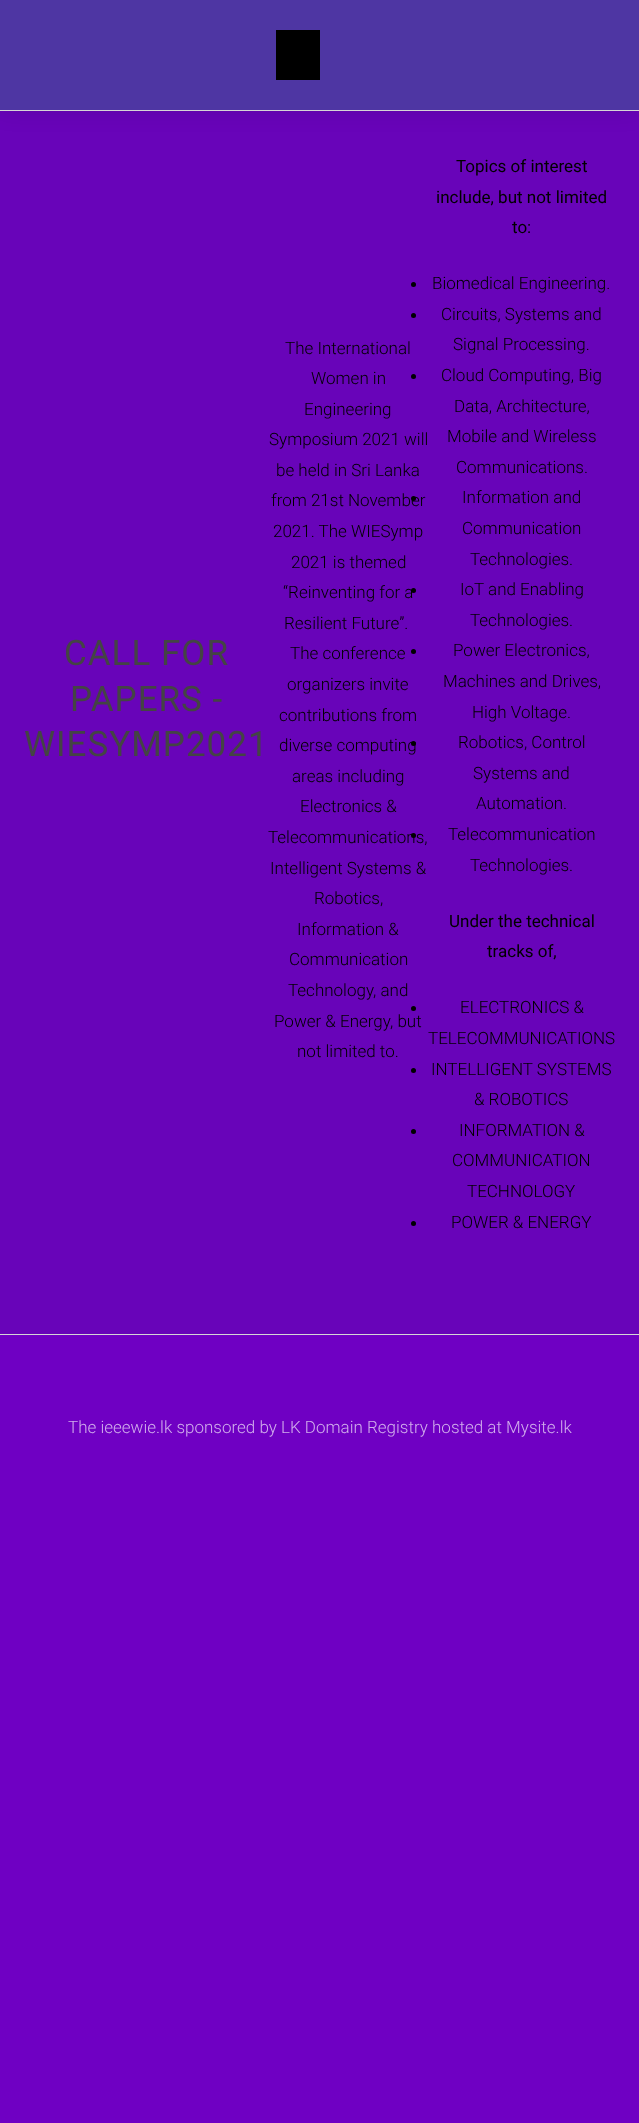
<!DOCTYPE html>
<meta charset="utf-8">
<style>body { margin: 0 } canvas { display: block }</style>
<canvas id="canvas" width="639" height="2123"></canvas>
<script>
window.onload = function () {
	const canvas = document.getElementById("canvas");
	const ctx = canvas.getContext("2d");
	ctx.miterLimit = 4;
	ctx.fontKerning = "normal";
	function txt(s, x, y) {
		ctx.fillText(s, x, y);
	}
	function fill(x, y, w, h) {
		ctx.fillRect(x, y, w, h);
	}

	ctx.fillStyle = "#6F00C3";
	fill(0, 0, 639, 2123);
	ctx.fillStyle = "#6804B9";
	fill(0, 111, 639, 1223);
	ctx.fillStyle = "rgba(0, 0, 0, 0.2)";
	ctx.filter = "blur(14px)";
	ctx.beginPath();
	ctx.rect(0, -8, 639, 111);
	ctx.fill();
	ctx.filter = "none";
	ctx.fillStyle = "#4E36A3";
	fill(0, 0, 639, 110);
	ctx.fillStyle = "#D6D6D6";
	fill(0, 110, 639, 1);
	ctx.fillStyle = "#000000";
	fill(276, 30, 44, 50);
	ctx.fillStyle = "#D6D6D6";
	fill(0, 1334, 639, 1);
	ctx.fillStyle = "#000000";
	ctx.beginPath();
	ctx.arc(413.5, 284.5, 2.5, 0, Math.PI * 2);
	ctx.fill();
	ctx.beginPath();
	ctx.arc(413.5, 315.5, 2.5, 0, Math.PI * 2);
	ctx.fill();
	ctx.beginPath();
	ctx.arc(413.5, 376.5, 2.5, 0, Math.PI * 2);
	ctx.fill();
	ctx.beginPath();
	ctx.arc(413.5, 498.5, 2.5, 0, Math.PI * 2);
	ctx.fill();
	ctx.beginPath();
	ctx.arc(413.5, 590.5, 2.5, 0, Math.PI * 2);
	ctx.fill();
	ctx.beginPath();
	ctx.arc(413.5, 651.5, 2.5, 0, Math.PI * 2);
	ctx.fill();
	ctx.beginPath();
	ctx.arc(413.5, 743.5, 2.5, 0, Math.PI * 2);
	ctx.fill();
	ctx.beginPath();
	ctx.arc(413.5, 835.5, 2.5, 0, Math.PI * 2);
	ctx.fill();
	ctx.beginPath();
	ctx.arc(413.5, 1008.5, 2.5, 0, Math.PI * 2);
	ctx.fill();
	ctx.beginPath();
	ctx.arc(413.5, 1070.5, 2.5, 0, Math.PI * 2);
	ctx.fill();
	ctx.beginPath();
	ctx.arc(413.5, 1131.5, 2.5, 0, Math.PI * 2);
	ctx.fill();
	ctx.beginPath();
	ctx.arc(413.5, 1223.5, 2.5, 0, Math.PI * 2);
	ctx.fill();
	ctx.letterSpacing = "1px";
	ctx.font = "35px Roboto";
	ctx.fillStyle = "#444444";
	txt("CALL FOR", 64, 665);
	txt("PAPERS -", 70, 711);
	txt("WIESYMP2021", 24, 756);
	ctx.letterSpacing = "0px";
	ctx.font = "300 17px Roboto";
	ctx.fillStyle = "#000000";
	txt("The International", 285, 354);
	txt("Women in", 311, 384);
	txt("Engineering", 304, 415);
	txt("Symposium 2021 will", 269, 445);
	txt("be held in Sri Lanka", 276, 476);
	txt("from 21st November", 271, 506);
	txt("2021. The WIESymp", 273, 537);
	txt("2021 is themed", 291, 568);
	txt("“Reinventing for a", 283, 598);
	txt("Resilient Future”.", 284, 629);
	txt("The conference", 290, 659);
	txt("organizers invite", 287, 690);
	txt("contributions from", 279, 721);
	txt("diverse computing", 279, 751);
	txt("areas including", 292, 782);
	txt("Electronics &", 300, 812);
	txt("Telecommunications,", 268, 843);
	txt("Intelligent Systems &", 270, 874);
	txt("Robotics,", 314, 904);
	txt("Information &", 297, 935);
	txt("Communication", 289, 965);
	txt("Technology, and", 288, 996);
	txt("Power & Energy, but", 274, 1027);
	txt("not limited to.", 297, 1057);
	ctx.font = "17px Roboto";
	txt("Topics of interest", 456, 172);
	txt("include, but not limited", 436, 203);
	txt("to:", 512, 233);
	ctx.font = "300 17px Roboto";
	txt("Biomedical Engineering.", 432, 289);
	txt("Circuits, Systems and", 441, 320);
	txt("Signal Processing.", 453, 350);
	txt("Cloud Computing, Big", 441, 381);
	txt("Data, Architecture,", 454, 412);
	txt("Mobile and Wireless", 447, 442);
	txt("Communications.", 456, 473);
	txt("Information and", 462, 503);
	txt("Communication", 462, 534);
	txt("Technologies.", 470, 565);
	txt("IoT and Enabling", 460, 595);
	txt("Technologies.", 470, 626);
	txt("Power Electronics,", 453, 656);
	txt("Machines and Drives,", 443, 687);
	txt("High Voltage.", 472, 718);
	txt("Robotics, Control", 458, 748);
	txt("Systems and", 473, 779);
	txt("Automation.", 476, 809);
	txt("Telecommunication", 448, 840);
	txt("Technologies.", 470, 871);
	ctx.font = "17px Roboto";
	txt("Under the technical", 449, 927);
	txt("tracks of,", 487, 957);
	ctx.font = "300 17px Roboto";
	txt("ELECTRONICS &", 460, 1013);
	txt("TELECOMMUNICATIONS", 428, 1044);
	txt("INTELLIGENT SYSTEMS", 431, 1075);
	txt("& ROBOTICS", 474, 1105);
	txt("INFORMATION &", 459, 1136);
	txt("COMMUNICATION", 452, 1166);
	txt("TECHNOLOGY", 467, 1197);
	txt("POWER & ENERGY", 451, 1228);
	ctx.fillStyle = "#D1ADEC";
	txt("The ieeewie.lk sponsored by LK Domain Registry hosted at Mysite.lk", 68, 1433);
};
</script>
